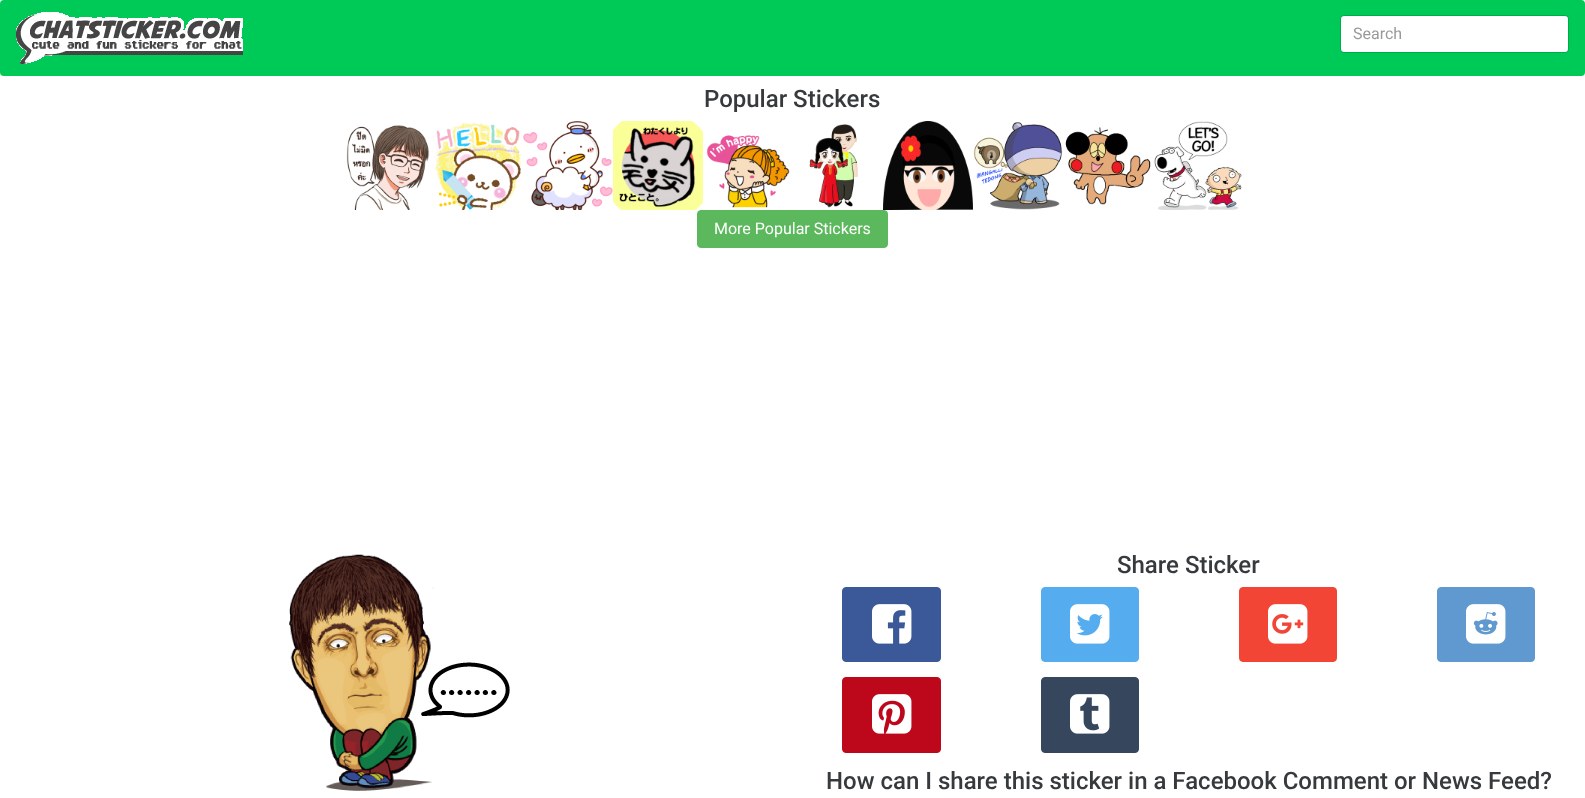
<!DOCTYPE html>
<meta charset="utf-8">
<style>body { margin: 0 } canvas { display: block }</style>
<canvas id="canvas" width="1585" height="798"></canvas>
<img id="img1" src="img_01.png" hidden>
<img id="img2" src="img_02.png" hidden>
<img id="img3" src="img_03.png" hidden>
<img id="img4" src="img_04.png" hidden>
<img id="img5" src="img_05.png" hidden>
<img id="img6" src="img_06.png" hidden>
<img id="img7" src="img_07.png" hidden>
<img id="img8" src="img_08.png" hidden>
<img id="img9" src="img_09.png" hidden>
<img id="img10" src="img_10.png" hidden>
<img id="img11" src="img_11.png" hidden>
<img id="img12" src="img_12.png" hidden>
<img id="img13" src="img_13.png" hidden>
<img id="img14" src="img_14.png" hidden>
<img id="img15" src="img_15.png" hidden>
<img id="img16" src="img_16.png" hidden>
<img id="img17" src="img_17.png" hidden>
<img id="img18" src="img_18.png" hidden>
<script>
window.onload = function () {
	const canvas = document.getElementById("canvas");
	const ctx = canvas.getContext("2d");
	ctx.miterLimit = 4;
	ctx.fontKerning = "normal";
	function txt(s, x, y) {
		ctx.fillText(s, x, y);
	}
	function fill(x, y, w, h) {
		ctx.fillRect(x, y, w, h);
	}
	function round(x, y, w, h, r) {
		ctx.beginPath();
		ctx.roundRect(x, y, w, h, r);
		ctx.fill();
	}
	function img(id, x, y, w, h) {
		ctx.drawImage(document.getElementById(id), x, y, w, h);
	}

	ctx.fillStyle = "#FFFFFF";
	fill(0, 0, 1585, 798);
	ctx.fillStyle = "#00CA57";
	round(0, 0, 1585, 76, 4);
	img("img1", 16, 12, 227, 52);
	ctx.fillStyle = "#FFFFFF";
	round(1341, 16, 227, 36, 3);
	ctx.beginPath();
	ctx.roundRect(1340.5, 15.5, 228, 37, 3.5);
	ctx.strokeStyle = "rgba(0, 0, 0, 0.15)";
	ctx.stroke();
	img("img2", 346, 125, 84, 85);
	img("img3", 434, 122, 88, 88);
	img("img4", 523, 121, 90, 89);
	img("img5", 613, 121, 90, 89);
	img("img6", 706, 135, 84, 73);
	img("img7", 809, 124, 49, 84);
	img("img8", 883, 121, 90, 89);
	img("img9", 973, 122, 90, 88);
	img("img10", 1065, 127, 86, 78);
	img("img11", 1154, 121, 88, 89);
	ctx.fillStyle = "#5CB85C";
	ctx.beginPath();
	ctx.roundRect(697.5, 210.5, 190, 37, 3.5);
	ctx.fill();
	ctx.strokeStyle = "#5CB85C";
	ctx.stroke();
	img("img12", 289, 554, 221, 237);
	ctx.fillStyle = "#3B5998";
	ctx.beginPath();
	ctx.roundRect(842.5, 587.5, 98, 74, 3.5);
	ctx.fill();
	ctx.strokeStyle = "#3B5998";
	ctx.stroke();
	img("img13", 872, 604, 40, 40);
	ctx.fillStyle = "#55ACEE";
	ctx.beginPath();
	ctx.roundRect(1041.5, 587.5, 97, 74, 3.5);
	ctx.fill();
	ctx.strokeStyle = "#55ACEE";
	ctx.stroke();
	img("img14", 1070, 604, 40, 40);
	ctx.fillStyle = "#F24536";
	ctx.beginPath();
	ctx.roundRect(1239.5, 587.5, 97, 74, 3.5);
	ctx.fill();
	ctx.strokeStyle = "#F24536";
	ctx.stroke();
	img("img15", 1268, 604, 40, 40);
	ctx.fillStyle = "#5F99CF";
	ctx.beginPath();
	ctx.roundRect(1437.5, 587.5, 97, 74, 3.5);
	ctx.fill();
	ctx.strokeStyle = "#5F99CF";
	ctx.stroke();
	img("img16", 1466, 604, 40, 40);
	ctx.fillStyle = "#BD081C";
	ctx.beginPath();
	ctx.roundRect(842.5, 677.5, 98, 75, 3.5);
	ctx.fill();
	ctx.strokeStyle = "#BD081C";
	ctx.stroke();
	img("img17", 872, 694, 40, 40);
	ctx.fillStyle = "#36465D";
	ctx.beginPath();
	ctx.roundRect(1041.5, 677.5, 97, 75, 3.5);
	ctx.fill();
	ctx.strokeStyle = "#36465D";
	ctx.stroke();
	img("img18", 1070, 694, 40, 40);
	ctx.font = "16px Roboto";
	ctx.fillStyle = "#999999";
	txt("Search", 1353, 39);
	ctx.font = "500 24px Roboto";
	ctx.fillStyle = "#373A3C";
	txt("Popular Stickers", 704, 107);
	ctx.font = "16px Roboto";
	ctx.fillStyle = "#FFFFFF";
	txt("More Popular Stickers", 714, 234);
	ctx.font = "500 24px Roboto";
	ctx.fillStyle = "#373A3C";
	txt("Share Sticker", 1117, 573);
	txt("How can I share this sticker in a Facebook Comment or News Feed?", 826, 789);
};
</script>
